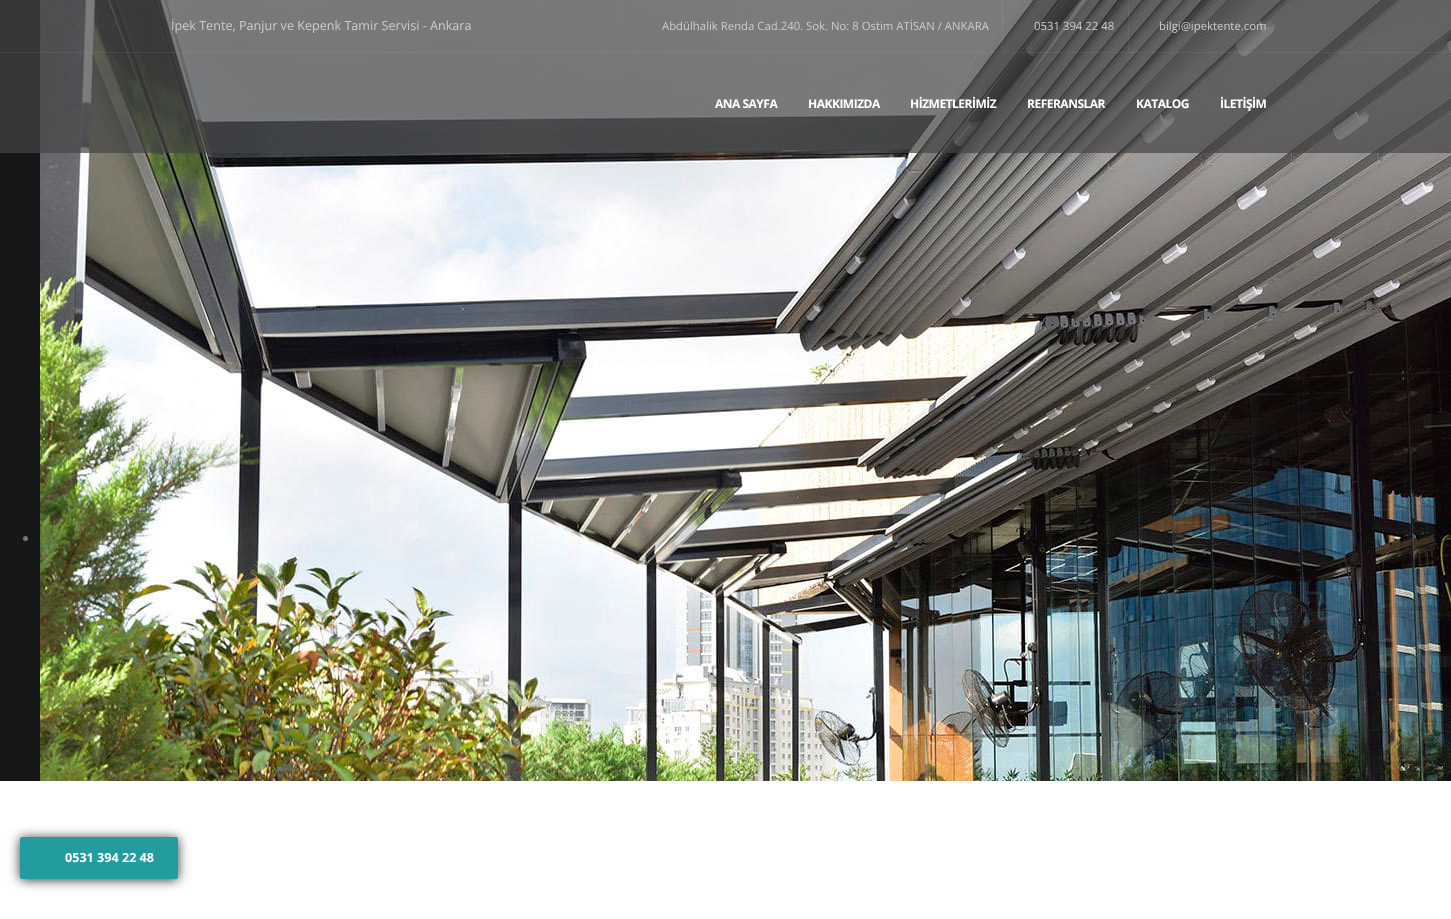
<!DOCTYPE html>
<meta charset="utf-8">
<style>body { margin: 0 } canvas { display: block }</style>
<canvas id="canvas" width="1451" height="919"></canvas>
<img id="img1" src="img_01.png" hidden>
<script>
window.onload = function () {
	const canvas = document.getElementById("canvas");
	const ctx = canvas.getContext("2d");
	ctx.miterLimit = 4;
	ctx.fontKerning = "normal";
	function txt(s, x, y) {
		ctx.fillText(s, x, y);
	}
	function fill(x, y, w, h) {
		ctx.fillRect(x, y, w, h);
	}
	function round(x, y, w, h, r) {
		ctx.beginPath();
		ctx.roundRect(x, y, w, h, r);
		ctx.fill();
	}
	function img(id, x, y, w, h) {
		ctx.drawImage(document.getElementById(id), x, y, w, h);
	}

	ctx.fillStyle = "#FFFFFF";
	fill(0, 0, 1451, 919);
	ctx.fillStyle = "#151719";
	fill(0, 0, 40, 781);
	ctx.fillStyle = "#777777";
	ctx.beginPath();
	ctx.arc(25.5, 538.5, 2.5, 0, Math.PI * 2);
	ctx.fill();
	img("img1", 40, 0, 1411, 781);
	ctx.fillStyle = "rgba(68, 68, 68, 0.7)";
	fill(0, 0, 1451, 153);
	ctx.fillStyle = "rgba(255, 255, 255, 0.06)";
	fill(0, 52, 1451, 1);
	fill(1002, 0, 1, 52);
	fill(1128, 0, 1, 52);
	ctx.fillStyle = "#323232";
	ctx.filter = "blur(6px)";
	ctx.beginPath();
	ctx.roundRect(20, 838, 158, 42, 2);
	ctx.fill();
	ctx.filter = "none";
	ctx.fillStyle = "#239C9F";
	round(20, 837, 158, 42, 2);
	ctx.font = "12.6px Open Sans";
	ctx.fillStyle = "#CCCCCC";
	txt("İpek Tente, Panjur ve Kepenk Tamir Servisi - Ankara", 171, 30);
	ctx.font = "11.35px Open Sans";
	txt("Abdülhalik Renda Cad.240. Sok. No: 8 Ostim ATİSAN / ANKARA", 662, 30);
	txt("0531 394 22 48", 1034, 30);
	txt("bilgi@ipektente.com", 1159, 30);
	ctx.letterSpacing = "-0.5px";
	ctx.font = "bold 12px Open Sans";
	ctx.fillStyle = "#FFFFFF";
	txt("ANA SAYFA", 715, 108);
	txt("HAKKIMIZDA", 808, 108);
	txt("HİZMETLERİMİZ", 910, 108);
	txt("REFERANSLAR", 1027, 108);
	txt("KATALOG", 1136, 108);
	txt("İLETİŞİM", 1220, 108);
	ctx.letterSpacing = "0px";
	ctx.font = "bold 12.6px Open Sans";
	txt("0531 394 22 48", 65, 862);
};
</script>
